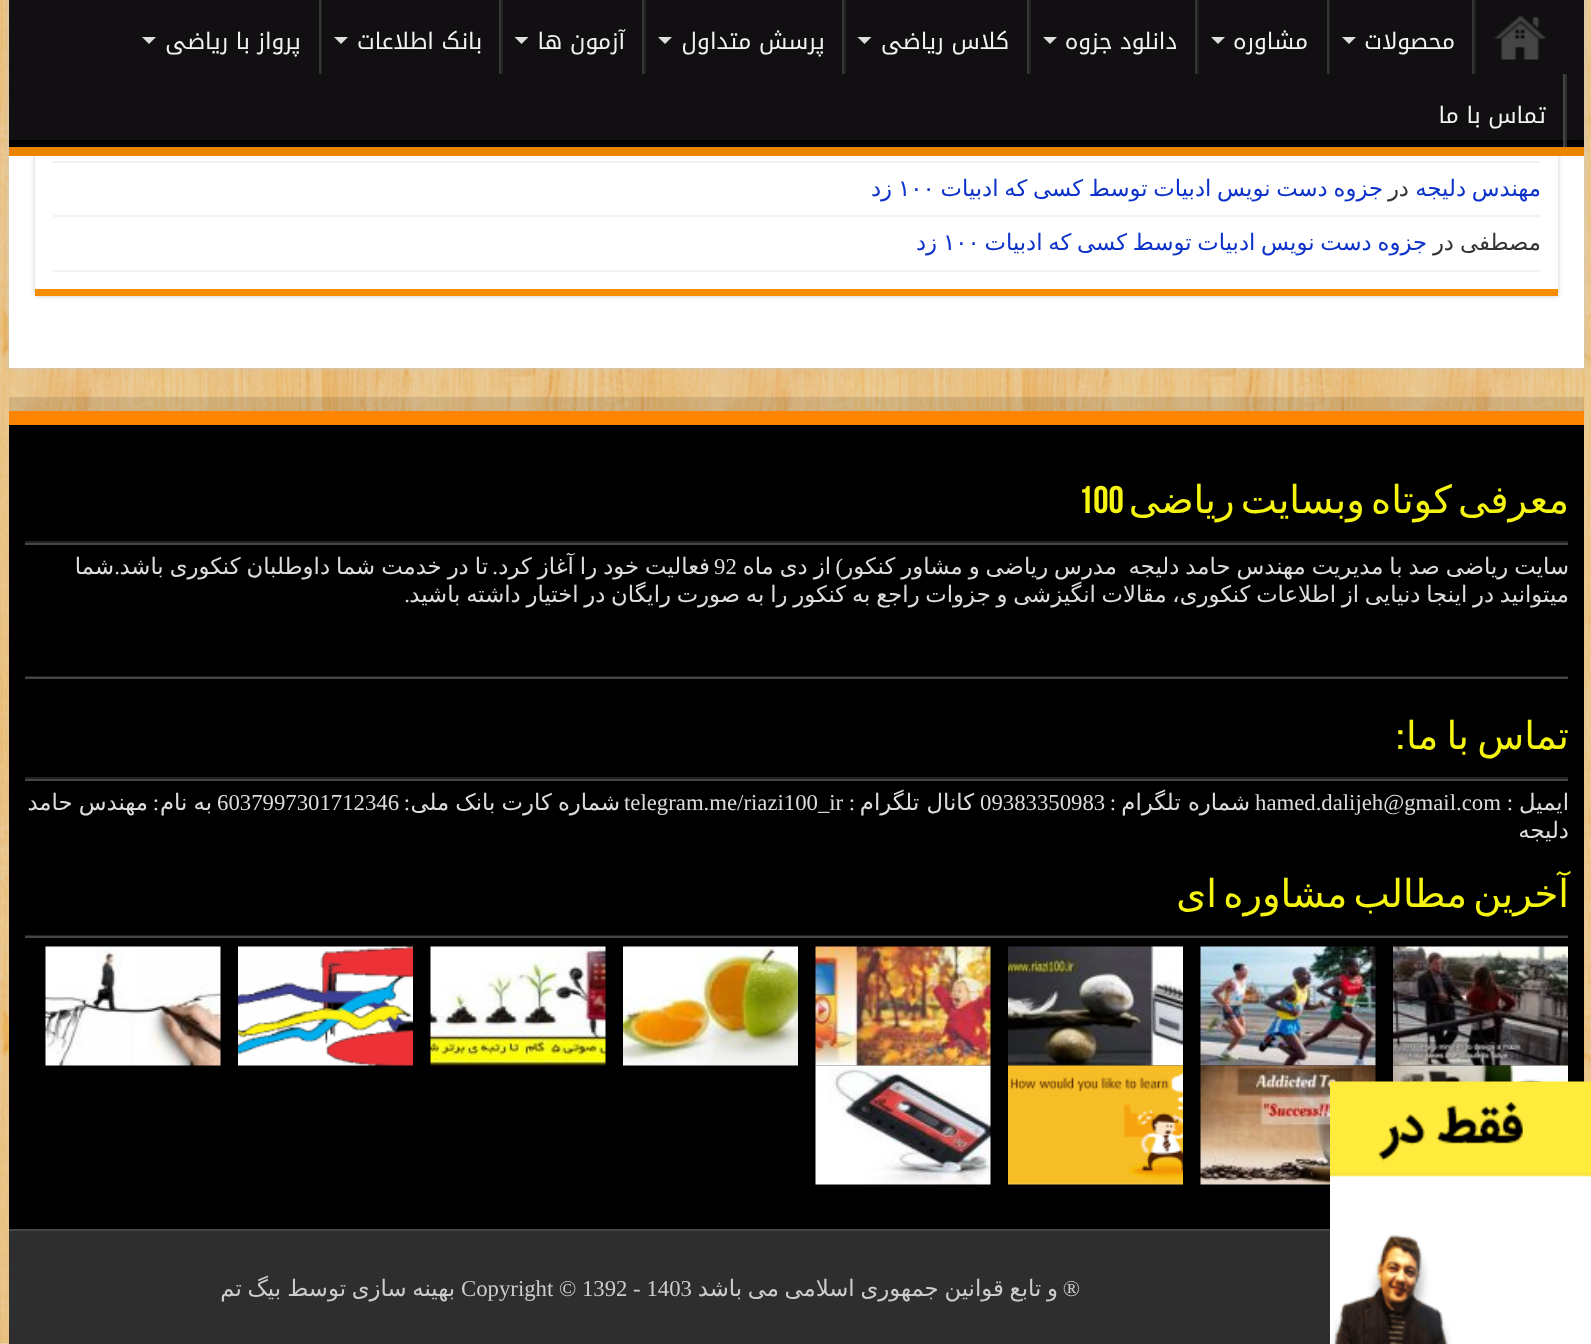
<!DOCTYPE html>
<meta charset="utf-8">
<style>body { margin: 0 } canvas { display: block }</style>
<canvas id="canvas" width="1591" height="1344"></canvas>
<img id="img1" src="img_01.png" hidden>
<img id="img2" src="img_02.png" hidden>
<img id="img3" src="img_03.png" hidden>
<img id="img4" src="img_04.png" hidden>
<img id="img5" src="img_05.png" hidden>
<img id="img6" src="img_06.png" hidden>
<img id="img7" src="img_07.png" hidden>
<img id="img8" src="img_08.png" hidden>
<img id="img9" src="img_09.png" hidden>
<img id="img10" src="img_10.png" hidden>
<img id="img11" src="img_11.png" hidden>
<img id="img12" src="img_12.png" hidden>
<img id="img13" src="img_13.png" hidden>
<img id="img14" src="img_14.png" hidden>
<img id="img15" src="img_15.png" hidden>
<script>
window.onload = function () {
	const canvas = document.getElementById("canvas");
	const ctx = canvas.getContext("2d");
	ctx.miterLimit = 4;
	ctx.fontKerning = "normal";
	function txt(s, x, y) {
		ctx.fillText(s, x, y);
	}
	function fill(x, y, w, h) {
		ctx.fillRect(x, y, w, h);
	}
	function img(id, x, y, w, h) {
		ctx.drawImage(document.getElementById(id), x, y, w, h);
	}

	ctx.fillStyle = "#FFFFFF";
	fill(0, 0, 1591, 1344);
	img("img1", 0, 0, 1591, 1344);
	ctx.fillStyle = "#CACACA";
	ctx.filter = "blur(2.5px)";
	ctx.beginPath();
	ctx.rect(9, -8, 1575, 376);
	ctx.fill();
	ctx.filter = "none";
	ctx.fillStyle = "#FFFFFF";
	fill(9, 0, 1575, 368);
	ctx.fillStyle = "#CACACA";
	ctx.filter = "blur(2.5px)";
	ctx.beginPath();
	ctx.rect(35, -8, 1523, 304);
	ctx.fill();
	ctx.filter = "none";
	ctx.fillStyle = "#FFFFFF";
	fill(35, 0, 1523, 289);
	ctx.fillStyle = "#F2F2F2";
	fill(53, 53, 1487, 2);
	fill(53, 107, 1487, 2);
	ctx.fillStyle = "rgba(5, 2, 5, 0.95)";
	fill(9, 0, 1575, 156);
	ctx.save();
	ctx.beginPath();
	ctx.rect(9, 0, 1575, 147);
	ctx.clip();
	ctx.fillStyle = "rgba(0, 0, 0, 0.95)";
	ctx.beginPath();
	ctx.moveTo(-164, -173);
	ctx.lineTo(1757, -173);
	ctx.lineTo(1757, 320);
	ctx.lineTo(-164, 320);
	ctx.closePath();
	ctx.moveTo(7, -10);
	ctx.lineTo(1582, -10);
	ctx.bezierCurveTo(1583, -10, 1584, -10, 1584, -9);
	ctx.lineTo(1584, 138);
	ctx.bezierCurveTo(1584, 139, 1583, 140, 1582, 140);
	ctx.lineTo(7, 140);
	ctx.bezierCurveTo(6, 140, 5, 139, 5, 138);
	ctx.lineTo(5, -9);
	ctx.bezierCurveTo(5, -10, 6, -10, 7, -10);
	ctx.closePath();
	ctx.fill("evenodd");
	ctx.restore();
	ctx.fillStyle = "rgba(248, 140, 0, 0.95)";
	fill(9, 147, 1575, 9);
	img("img2", 1494, 15, 52, 45);
	ctx.fillStyle = "rgba(34, 34, 34, 0.95)";
	fill(1474, 0, 2, 74);
	ctx.fillStyle = "rgba(56, 56, 56, 0.95)";
	fill(1472, 0, 2, 74);
	ctx.fillStyle = "#DFDFDF";
	ctx.beginPath();
	ctx.moveTo(1342, 37);
	ctx.lineTo(1356, 37);
	ctx.lineTo(1349, 44);
	ctx.closePath();
	ctx.fill();
	ctx.fillStyle = "rgba(34, 34, 34, 0.95)";
	fill(1328, 0, 2, 74);
	ctx.fillStyle = "rgba(56, 56, 56, 0.95)";
	fill(1327, 0, 2, 74);
	ctx.fillStyle = "#DFDFDF";
	ctx.beginPath();
	ctx.moveTo(1211, 37);
	ctx.lineTo(1225, 37);
	ctx.lineTo(1218, 44);
	ctx.closePath();
	ctx.fill();
	ctx.fillStyle = "rgba(34, 34, 34, 0.95)";
	fill(1197, 0, 2, 74);
	ctx.fillStyle = "rgba(56, 56, 56, 0.95)";
	fill(1195, 0, 2, 74);
	ctx.fillStyle = "#DFDFDF";
	ctx.beginPath();
	ctx.moveTo(1043, 37);
	ctx.lineTo(1057, 37);
	ctx.lineTo(1050, 44);
	ctx.closePath();
	ctx.fill();
	ctx.fillStyle = "#212121";
	fill(1029, 0, 2, 74);
	ctx.fillStyle = "#363636";
	fill(1027, 0, 2, 74);
	ctx.fillStyle = "#DFDFDF";
	ctx.beginPath();
	ctx.moveTo(857.5, 37);
	ctx.lineTo(871.5, 37);
	ctx.lineTo(864.5, 44);
	ctx.closePath();
	ctx.fill();
	ctx.fillStyle = "#212121";
	fill(844, 0, 2, 74);
	ctx.fillStyle = "#363636";
	fill(842, 0, 2, 74);
	ctx.fillStyle = "#DFDFDF";
	ctx.beginPath();
	ctx.moveTo(658, 37);
	ctx.lineTo(672, 37);
	ctx.lineTo(665, 44);
	ctx.closePath();
	ctx.fill();
	ctx.fillStyle = "#212121";
	fill(644, 0, 2, 74);
	ctx.fillStyle = "#363636";
	fill(642, 0, 2, 74);
	ctx.fillStyle = "#DFDFDF";
	ctx.beginPath();
	ctx.moveTo(514.5, 37);
	ctx.lineTo(528.5, 37);
	ctx.lineTo(521.5, 44);
	ctx.closePath();
	ctx.fill();
	ctx.fillStyle = "#212121";
	fill(501, 0, 2, 74);
	ctx.fillStyle = "#363636";
	fill(499, 0, 2, 74);
	ctx.fillStyle = "#DFDFDF";
	ctx.beginPath();
	ctx.moveTo(334, 37);
	ctx.lineTo(348, 37);
	ctx.lineTo(341, 44);
	ctx.closePath();
	ctx.fill();
	ctx.fillStyle = "#212121";
	fill(320, 0, 2, 74);
	ctx.fillStyle = "rgba(56, 56, 56, 0.95)";
	fill(319, 0, 2, 74);
	ctx.fillStyle = "#DFDFDF";
	ctx.beginPath();
	ctx.moveTo(142, 37);
	ctx.lineTo(156, 37);
	ctx.lineTo(149, 44);
	ctx.closePath();
	ctx.fill();
	ctx.fillStyle = "#2D2D2D";
	fill(1565, 74, 2, 73);
	ctx.fillStyle = "#424242";
	fill(1563, 74, 2, 73);
	ctx.fillStyle = "#F88C00";
	fill(35, 289, 1523, 7);
	ctx.fillStyle = "#F2F2F2";
	fill(53, 161, 1487, 2);
	fill(53, 215, 1487, 2);
	fill(53, 270, 1487, 2);
	ctx.fillStyle = "rgba(0, 0, 0, 0.1)";
	ctx.beginPath();
	ctx.moveTo(9, 397);
	ctx.lineTo(9, 411);
	ctx.lineTo(1584, 411);
	ctx.lineTo(1584, 1215);
	ctx.lineTo(1584, 397);
	ctx.closePath();
	ctx.fill();
	ctx.fillStyle = "#000000";
	fill(9, 425, 1575, 804);
	ctx.fillStyle = "#FF8500";
	fill(9, 411, 1575, 14);
	ctx.fillStyle = "#222222";
	fill(25, 541, 1543, 2);
	ctx.fillStyle = "#444444";
	fill(25, 543, 1543, 2);
	ctx.fillStyle = "#222222";
	fill(25, 676, 1543, 1);
	ctx.fillStyle = "#444444";
	fill(25, 677, 1543, 2);
	ctx.fillStyle = "#222222";
	fill(25, 777, 1543, 2);
	ctx.fillStyle = "#444444";
	fill(25, 779, 1543, 2);
	ctx.fillStyle = "#222222";
	fill(25, 935, 1543, 1);
	ctx.fillStyle = "#444444";
	fill(25, 936, 1543, 2);
	img("img3", 1393, 946, 175, 120);
	img("img4", 1200, 946, 176, 120);
	img("img5", 1008, 946, 175, 120);
	img("img6", 815, 946, 176, 120);
	img("img7", 623, 946, 175, 120);
	img("img8", 430, 946, 176, 120);
	img("img9", 238, 946, 175, 120);
	img("img10", 45, 946, 176, 120);
	img("img11", 1393, 1065, 175, 17);
	img("img12", 1200, 1065, 176, 120);
	img("img13", 1008, 1065, 175, 120);
	img("img14", 815, 1065, 176, 120);
	ctx.fillStyle = "#2E2E2E";
	fill(9, 1231, 1321, 113);
	ctx.fillStyle = "#444444";
	fill(9, 1229, 1321, 2);
	img("img15", 1330, 1081, 261, 263);
	ctx.direction = "rtl";
	ctx.font = "22.75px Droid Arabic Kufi";
	ctx.fillStyle = "#F3F3F3";
	txt("محصولات", 1455, 49);
	txt("مشاوره", 1308, 49);
	txt("دانلود جزوه", 1177, 49);
	txt("کلاس ریاضی", 1009, 49);
	txt("پرسش متداول", 825, 49);
	txt("آزمون ها", 625, 49);
	txt("بانک اطلاعات", 482, 49);
	txt("پرواز با ریاضی", 301, 49);
	txt("تماس با ما", 1546, 123);
	ctx.save();
	ctx.beginPath();
	ctx.rect(53, 163, 1487, 52);
	ctx.clip();
	ctx.wordSpacing = "-1.5px";
	ctx.font = "22.75px DejaVu Sans";
	ctx.fillStyle = "#0C32C9";
	txt("مهندس دلیجه", 1541, 196);
	ctx.restore();
	ctx.font = "22.75px DejaVu Sans";
	ctx.fillStyle = "#333333";
	txt("در", 1409, 196);
	ctx.wordSpacing = "-1.5px";
	ctx.fillStyle = "#0C32C9";
	txt("جزوه دست نویس ادبیات توسط کسی که ادبیات", 1383, 196);
	ctx.wordSpacing = "0px";
	ctx.direction = "ltr";
	txt("۱۰۰", 898, 196);
	ctx.direction = "rtl";
	txt("زد", 892, 196);
	ctx.fillStyle = "#333333";
	txt("مصطفی", 1541, 250);
	txt("در", 1454, 250);
	ctx.wordSpacing = "-1.5px";
	ctx.fillStyle = "#0C32C9";
	txt("جزوه دست نویس ادبیات توسط کسی که ادبیات", 1427, 250);
	ctx.wordSpacing = "0px";
	ctx.direction = "ltr";
	txt("۱۰۰", 943, 250);
	ctx.direction = "rtl";
	txt("زد", 937, 250);
	ctx.wordSpacing = "-6px";
	ctx.font = "38.5px DejaVu Sans";
	ctx.fillStyle = "#F5F511";
	txt("معرفی کوتاه وبسایت ریاضی", 1569, 513);
	ctx.wordSpacing = "0px";
	ctx.direction = "ltr";
	ctx.font = "bold 38.5px Bebas Neue";
	txt("100", 1078, 513);
	ctx.wordSpacing = "-1.25px";
	ctx.direction = "rtl";
	ctx.font = "22.75px DejaVu Sans";
	ctx.fillStyle = "#DDDDDD";
	txt("سایت ریاضی صد با مدیریت مهندس حامد دلیجه", 1569, 574);
	ctx.wordSpacing = "0px";
	ctx.font = "22.75px Liberation Serif";
	txt(")", 843, 574);
	ctx.wordSpacing = "-1.25px";
	ctx.font = "22.75px DejaVu Sans";
	txt("مدرس ریاضی و مشاور کنکور", 1117, 574);
	txt("از دی ماه", 831, 574);
	ctx.wordSpacing = "0px";
	ctx.direction = "ltr";
	ctx.font = "22.75px Liberation Serif";
	txt("92", 714, 574);
	ctx.wordSpacing = "-1.25px";
	ctx.direction = "rtl";
	ctx.font = "22.75px DejaVu Sans";
	txt("فعالیت خود را آغاز کرد", 710, 574);
	txt("تا در خدمت شما داوطلبان کنکوری باشد", 488, 574);
	ctx.wordSpacing = "0px";
	ctx.font = "22.75px Liberation Serif";
	txt(".", 120, 574);
	ctx.font = "22.75px DejaVu Sans";
	txt("شما", 114, 574);
	ctx.font = "22.75px Liberation Serif";
	txt(".", 498, 574);
	ctx.wordSpacing = "-1.5px";
	ctx.font = "22.75px DejaVu Sans";
	txt("میتوانید در اینجا دنیایی از اطلاعات کنکوری، مقالات انگیزشی و جزوات راجع به کنکور را به صورت رایگان در اختیار داشته باشید", 1569, 602);
	ctx.wordSpacing = "0px";
	ctx.font = "22.75px Liberation Serif";
	txt(".", 410, 602);
	ctx.wordSpacing = "-4px";
	ctx.font = "38.5px DejaVu Sans";
	ctx.fillStyle = "#F5F511";
	txt("تماس با ما", 1569, 749);
	ctx.wordSpacing = "0px";
	ctx.font = "bold 38.5px Bebas Neue";
	txt(":", 1404, 749);
	ctx.font = "22.75px DejaVu Sans";
	ctx.fillStyle = "#DDDDDD";
	txt("ایمیل", 1569, 810);
	ctx.font = "22.75px Liberation Serif";
	txt(":", 1513, 810);
	ctx.direction = "ltr";
	txt("hamed.dalijeh@gmail.com", 1255, 810);
	ctx.direction = "rtl";
	ctx.font = "22.75px DejaVu Sans";
	txt("شماره تلگرام", 1250, 810);
	ctx.font = "22.75px Liberation Serif";
	txt(":", 1116, 810);
	ctx.direction = "ltr";
	txt("09383350983", 980, 810);
	ctx.direction = "rtl";
	ctx.font = "22.75px DejaVu Sans";
	txt("کانال تلگرام", 974, 810);
	ctx.font = "22.75px Liberation Serif";
	txt(":", 855, 810);
	ctx.direction = "ltr";
	txt("telegram.me/riazi100_ir", 624, 810);
	ctx.wordSpacing = "-1px";
	ctx.direction = "rtl";
	ctx.font = "22.75px DejaVu Sans";
	txt("شماره کارت بانک ملی", 620, 810);
	ctx.wordSpacing = "0px";
	ctx.font = "22.75px Liberation Serif";
	txt(":", 410, 810);
	ctx.direction = "ltr";
	txt("6037997301712346", 217, 810);
	ctx.wordSpacing = "-1px";
	ctx.direction = "rtl";
	ctx.font = "22.75px DejaVu Sans";
	txt("به نام", 212, 810);
	ctx.wordSpacing = "0px";
	ctx.font = "22.75px Liberation Serif";
	txt(":", 159, 810);
	ctx.wordSpacing = "-1px";
	ctx.font = "22.75px DejaVu Sans";
	txt("مهندس حامد", 148, 810);
	ctx.wordSpacing = "0px";
	txt("دلیجه", 1569, 838);
	ctx.wordSpacing = "-6px";
	ctx.font = "38.5px DejaVu Sans";
	ctx.fillStyle = "#F5F511";
	txt("آخرین مطالب مشاوره ای", 1569, 907);
	ctx.wordSpacing = "-1.5px";
	ctx.font = "22.75px DejaVu Sans";
	ctx.fillStyle = "#CCCCCC";
	txt("و تابع قوانین جمهوری اسلامی می باشد", 1058, 1296);
	ctx.wordSpacing = "0px";
	ctx.font = "22.75px Liberation Serif";
	txt("®", 1080, 1296);
	ctx.direction = "ltr";
	txt("Copyright © 1392 - 1403", 461, 1296);
	ctx.wordSpacing = "-1.5px";
	ctx.direction = "rtl";
	ctx.font = "22.75px DejaVu Sans";
	txt("بهینه سازی توسط", 455, 1296);
	txt("بیگ تم", 281, 1296);
};
</script>
